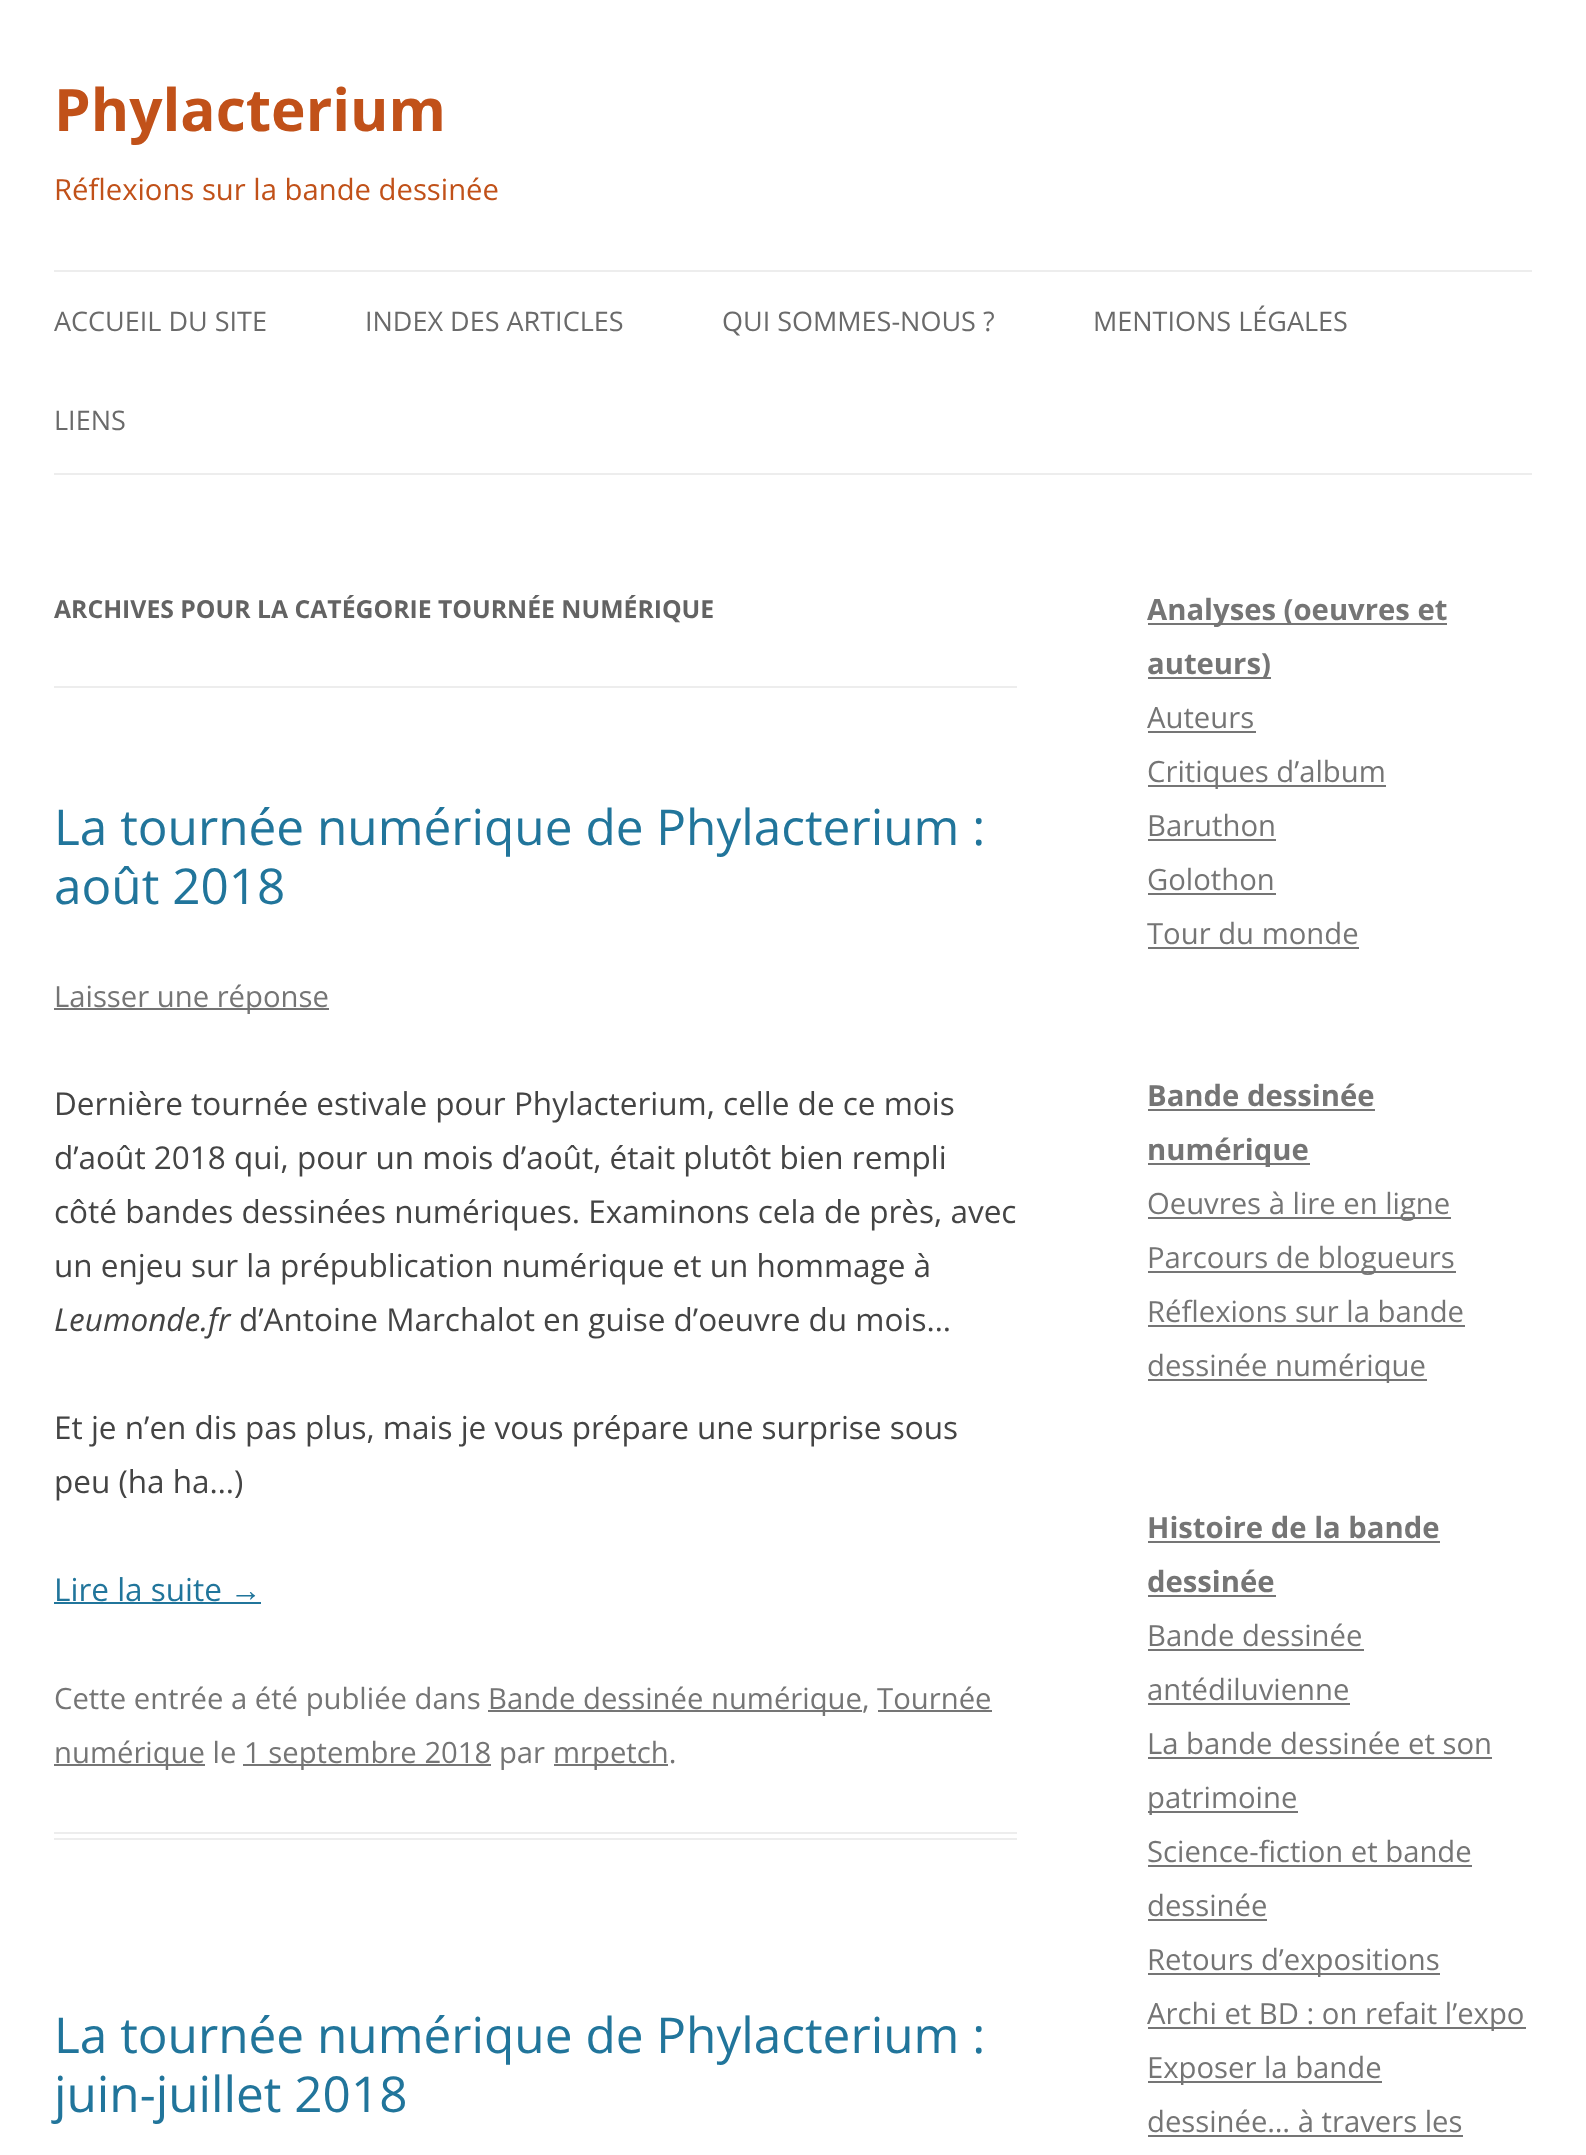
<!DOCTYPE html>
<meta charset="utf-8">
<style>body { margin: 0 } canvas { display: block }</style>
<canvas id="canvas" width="1586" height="2155"></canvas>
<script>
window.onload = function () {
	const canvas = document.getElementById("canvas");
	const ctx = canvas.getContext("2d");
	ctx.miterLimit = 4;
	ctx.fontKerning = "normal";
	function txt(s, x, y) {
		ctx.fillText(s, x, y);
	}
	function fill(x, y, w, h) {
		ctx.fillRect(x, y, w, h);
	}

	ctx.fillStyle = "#FFFFFF";
	fill(0, 0, 1586, 2155);
	ctx.fillStyle = "#EDEDED";
	fill(54, 270, 1478, 2);
	fill(54, 473, 1478, 2);
	fill(54, 686, 963, 2);
	fill(54, 1832, 963, 2);
	fill(54, 1838, 963, 2);
	ctx.fillStyle = "#757575";
	fill(54, 1008, 275, 2);
	ctx.fillStyle = "#21759B";
	fill(54, 1602, 207, 2);
	ctx.fillStyle = "#757575";
	fill(488, 1710, 374, 2);
	fill(878, 1710, 114, 2);
	fill(54, 1764, 151, 2);
	fill(243, 1764, 248, 2);
	fill(554, 1764, 114, 2);
	fill(1148, 623, 299, 2);
	fill(1148, 677, 123, 2);
	fill(1148, 731, 108, 2);
	fill(1148, 785, 238, 2);
	fill(1148, 839, 128, 2);
	fill(1148, 893, 128, 2);
	fill(1148, 947, 211, 2);
	fill(1148, 1109, 227, 2);
	fill(1148, 1163, 162, 2);
	fill(1148, 1217, 303, 2);
	fill(1148, 1271, 308, 2);
	fill(1148, 1325, 317, 2);
	fill(1148, 1379, 279, 2);
	fill(1148, 1541, 292, 2);
	fill(1148, 1595, 128, 2);
	fill(1148, 1649, 216, 2);
	fill(1148, 1703, 202, 2);
	fill(1148, 1757, 344, 2);
	fill(1148, 1811, 150, 2);
	fill(1148, 1865, 324, 2);
	fill(1148, 1919, 119, 2);
	fill(1148, 1973, 292, 2);
	fill(1148, 2027, 378, 2);
	fill(1148, 2081, 234, 2);
	fill(1148, 2135, 315, 2);
	ctx.font = "bold 58.5px Open Sans";
	ctx.fillStyle = "#C15119";
	txt("Phylacterium", 54, 131);
	ctx.font = "29.25px Open Sans";
	txt("Réflexions sur la bande dessinée", 54, 200);
	ctx.font = "27px Open Sans";
	ctx.fillStyle = "#6A6A6A";
	txt("ACCUEIL DU SITE", 54, 331);
	txt("INDEX DES ARTICLES", 365, 331);
	txt("QUI SOMMES-NOUS ?", 722, 331);
	txt("MENTIONS LÉGALES", 1093, 331);
	txt("LIENS", 54, 430);
	ctx.font = "bold 24.75px Open Sans";
	ctx.fillStyle = "#636363";
	txt("ARCHIVES POUR LA CATÉGORIE TOURNÉE NUMÉRIQUE", 54, 618);
	ctx.font = "49.5px Open Sans";
	ctx.fillStyle = "#21759B";
	txt("La tournée numérique de Phylacterium :", 54, 845);
	txt("août 2018", 54, 904);
	ctx.font = "29.25px Open Sans";
	ctx.fillStyle = "#757575";
	txt("Laisser une réponse", 54, 1007);
	ctx.font = "31.5px Open Sans";
	ctx.fillStyle = "#444444";
	txt("Dernière tournée estivale pour Phylacterium, celle de ce mois", 54, 1115);
	txt("d’août 2018 qui, pour un mois d’août, était plutôt bien rempli", 54, 1169);
	txt("côté bandes dessinées numériques. Examinons cela de près, avec", 54, 1223);
	txt("un enjeu sur la prépublication numérique et un hommage à", 54, 1277);
	ctx.font = "italic 31.5px Open Sans";
	txt("Leumonde.fr", 54, 1331);
	ctx.font = "31.5px Open Sans";
	txt("d’Antoine Marchalot en guise d’oeuvre du mois…", 239, 1331);
	txt("Et je n’en dis pas plus, mais je vous prépare une surprise sous", 54, 1439);
	txt("peu (ha ha…)", 54, 1493);
	ctx.fillStyle = "#21759B";
	txt("Lire la suite", 54, 1601);
	ctx.font = "31.5px Liberation Sans";
	txt("→", 230, 1601);
	ctx.font = "29.25px Open Sans";
	ctx.fillStyle = "#757575";
	txt("Cette entrée a été publiée dans", 54, 1709);
	txt("Bande dessinée numérique, Tournée", 488, 1709);
	txt("numérique le", 54, 1763);
	txt("1 septembre 2018 par", 244, 1763);
	txt("mrpetch.", 553, 1763);
	ctx.font = "49.5px Open Sans";
	ctx.fillStyle = "#21759B";
	txt("La tournée numérique de Phylacterium :", 54, 2053);
	txt("juin-juillet 2018", 54, 2112);
	ctx.font = "bold 29.25px Open Sans";
	ctx.fillStyle = "#757575";
	txt("Analyses (oeuvres et", 1147, 620);
	txt("auteurs)", 1147, 674);
	ctx.font = "29.25px Open Sans";
	txt("Auteurs", 1147, 728);
	txt("Critiques d’album", 1147, 782);
	txt("Baruthon", 1147, 836);
	txt("Golothon", 1147, 890);
	txt("Tour du monde", 1147, 944);
	ctx.font = "bold 29.25px Open Sans";
	txt("Bande dessinée", 1147, 1106);
	txt("numérique", 1147, 1160);
	ctx.font = "29.25px Open Sans";
	txt("Oeuvres à lire en ligne", 1147, 1214);
	txt("Parcours de blogueurs", 1147, 1268);
	txt("Réflexions sur la bande", 1147, 1322);
	txt("dessinée numérique", 1147, 1376);
	ctx.font = "bold 29.25px Open Sans";
	txt("Histoire de la bande", 1147, 1538);
	txt("dessinée", 1147, 1592);
	ctx.font = "29.25px Open Sans";
	txt("Bande dessinée", 1147, 1646);
	txt("antédiluvienne", 1147, 1700);
	txt("La bande dessinée et son", 1147, 1754);
	txt("patrimoine", 1147, 1808);
	txt("Science-fiction et bande", 1147, 1862);
	txt("dessinée", 1147, 1916);
	txt("Retours d’expositions", 1147, 1970);
	txt("Archi et BD : on refait l’expo", 1147, 2024);
	txt("Exposer la bande", 1147, 2078);
	txt("dessinée… à travers les", 1147, 2132);
};
</script>
